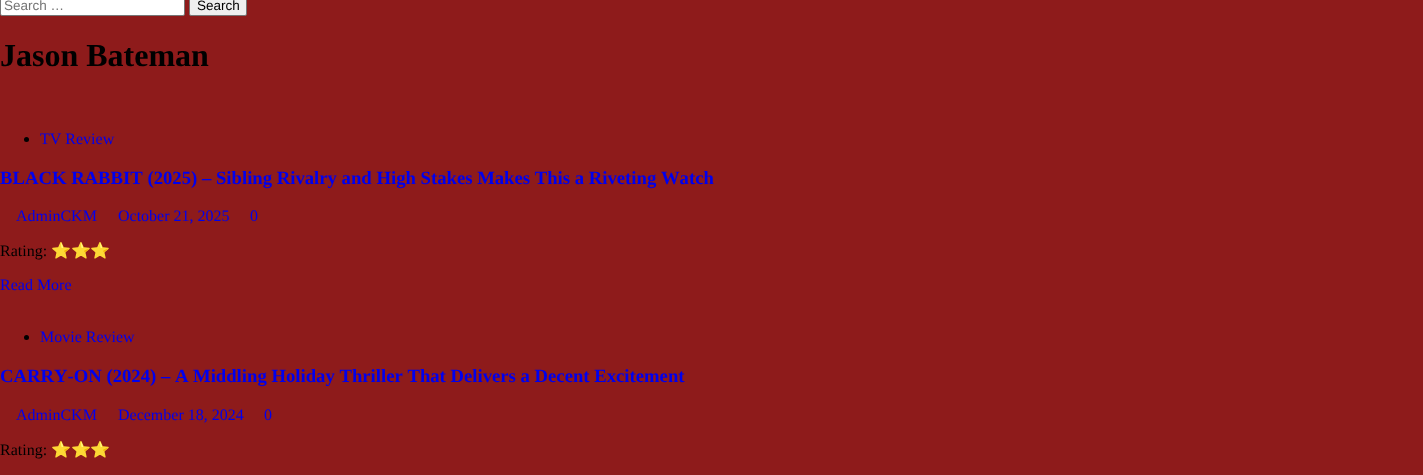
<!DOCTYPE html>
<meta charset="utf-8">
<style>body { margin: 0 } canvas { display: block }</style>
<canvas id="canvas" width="1423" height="475"></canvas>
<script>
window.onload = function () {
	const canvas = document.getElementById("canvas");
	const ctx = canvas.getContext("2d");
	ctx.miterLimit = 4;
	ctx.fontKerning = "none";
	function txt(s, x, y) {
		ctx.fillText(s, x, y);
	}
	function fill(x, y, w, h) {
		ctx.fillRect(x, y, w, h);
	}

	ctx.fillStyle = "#8E1B1B";
	fill(0, 0, 1423, 475);
	ctx.fillStyle = "#FFFFFF";
	ctx.beginPath();
	ctx.roundRect(0.5, -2.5, 184, 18, 1.5);
	ctx.fill();
	ctx.strokeStyle = "#767676";
	ctx.stroke();
	ctx.fillStyle = "#EFEFEF";
	ctx.beginPath();
	ctx.roundRect(189.5, -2.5, 57, 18, 1.5);
	ctx.fill();
	ctx.stroke();
	ctx.fillStyle = "#000000";
	ctx.beginPath();
	ctx.arc(26.5, 139.5, 2.5, 0, Math.PI * 2);
	ctx.fill();
	ctx.beginPath();
	ctx.arc(26.5, 337.5, 2.5, 0, Math.PI * 2);
	ctx.fill();
	ctx.font = "13.5px Liberation Sans";
	ctx.fillStyle = "#757575";
	txt("Search …", 4, 10);
	ctx.fillStyle = "#000000";
	txt("Search", 197, 10);
	ctx.font = "bold 32px Liberation Serif";
	txt("Jason Bateman", 0, 66);
	ctx.font = "16px Liberation Serif";
	ctx.fillStyle = "#0000EE";
	txt("TV Review", 40, 144);
	ctx.font = "bold 18.7px Liberation Serif";
	txt("BLACK RABBIT (2025) – Sibling Rivalry and High Stakes Makes This a Riveting Watch", 0, 184);
	ctx.font = "16px Liberation Serif";
	txt("AdminCKM", 16, 221);
	txt("October 21, 2025", 118, 221);
	txt("0", 250, 221);
	ctx.fillStyle = "#000000";
	txt("Rating:", 0, 256);
	ctx.font = "16px Noto Color Emoji";
	txt("⭐⭐⭐", 51, 256);
	ctx.font = "16px Liberation Serif";
	ctx.fillStyle = "#0000EE";
	txt("Read More", 0, 290);
	txt("Movie Review", 40, 342);
	ctx.font = "bold 18.7px Liberation Serif";
	txt("CARRY-ON (2024) – A", 0, 382);
	txt("Middling Holiday Thriller That Delivers a Decent Excitement", 193, 382);
	ctx.font = "16px Liberation Serif";
	txt("AdminCKM", 16, 420);
	txt("December 18, 2024", 118, 420);
	txt("0", 264, 420);
	ctx.fillStyle = "#000000";
	txt("Rating:", 0, 455);
	ctx.font = "16px Noto Color Emoji";
	txt("⭐⭐⭐", 51, 455);
};
</script>
